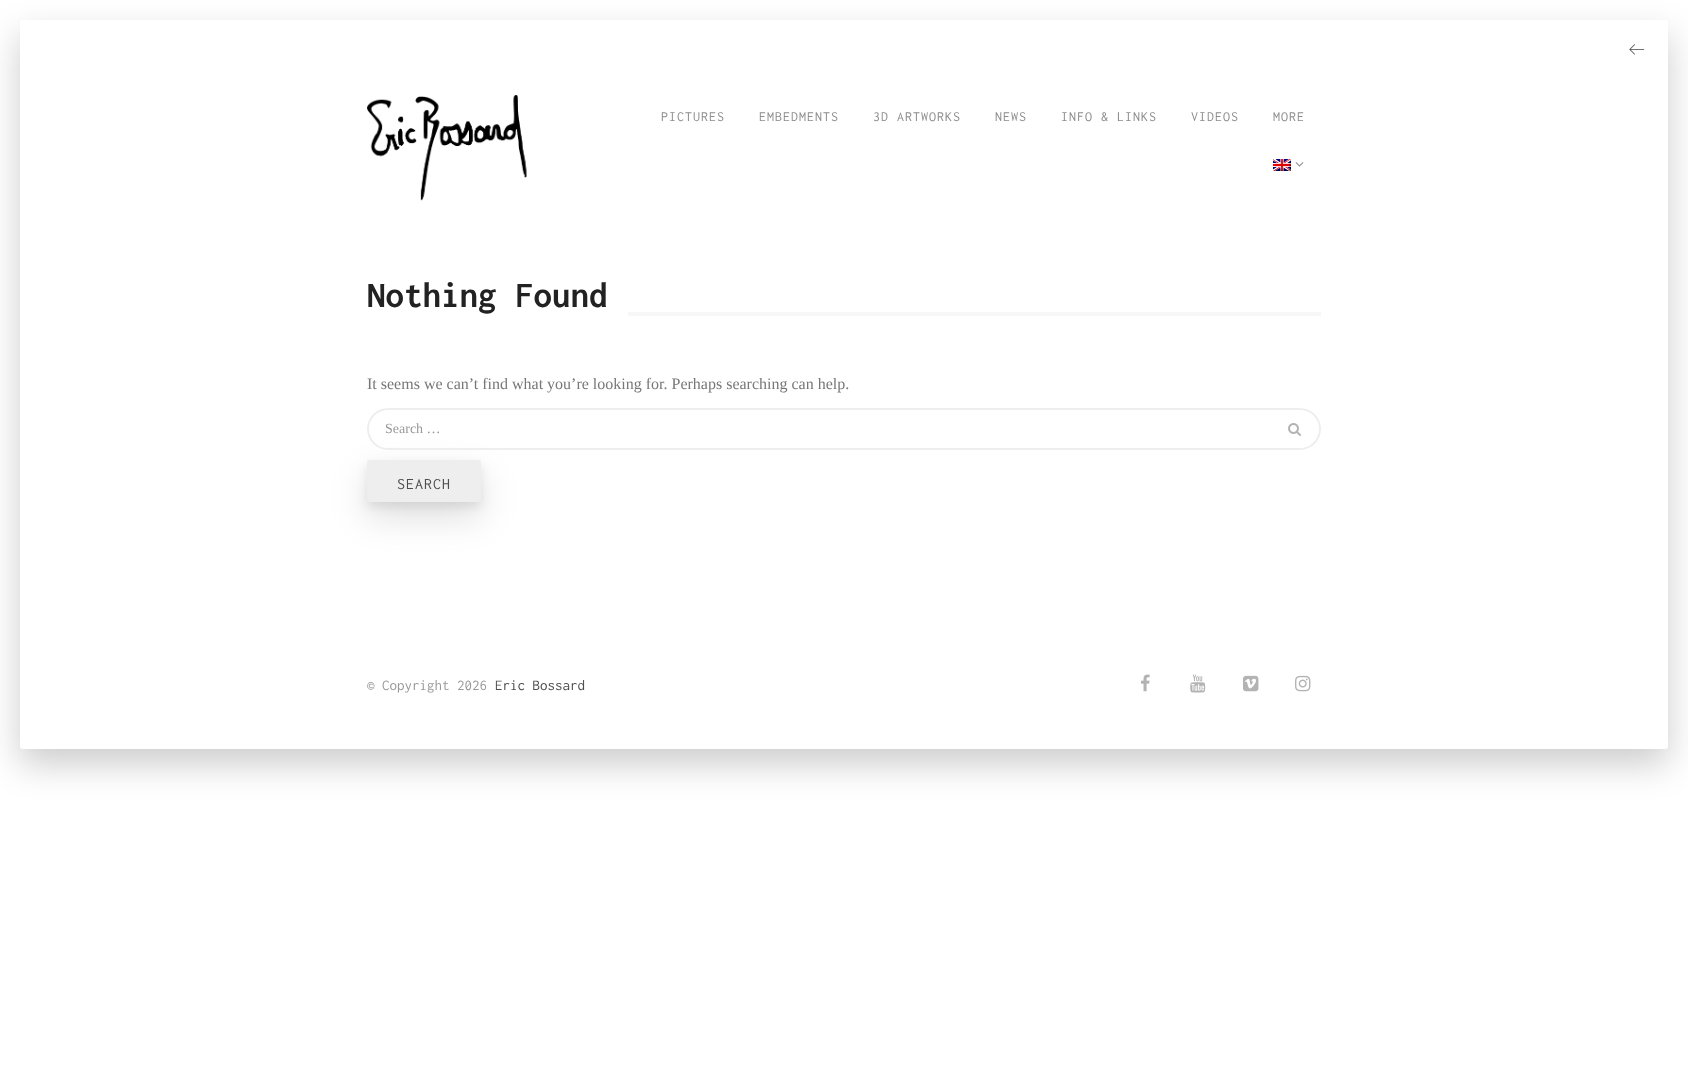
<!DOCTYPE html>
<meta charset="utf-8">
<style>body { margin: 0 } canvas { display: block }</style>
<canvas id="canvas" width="1688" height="1065"></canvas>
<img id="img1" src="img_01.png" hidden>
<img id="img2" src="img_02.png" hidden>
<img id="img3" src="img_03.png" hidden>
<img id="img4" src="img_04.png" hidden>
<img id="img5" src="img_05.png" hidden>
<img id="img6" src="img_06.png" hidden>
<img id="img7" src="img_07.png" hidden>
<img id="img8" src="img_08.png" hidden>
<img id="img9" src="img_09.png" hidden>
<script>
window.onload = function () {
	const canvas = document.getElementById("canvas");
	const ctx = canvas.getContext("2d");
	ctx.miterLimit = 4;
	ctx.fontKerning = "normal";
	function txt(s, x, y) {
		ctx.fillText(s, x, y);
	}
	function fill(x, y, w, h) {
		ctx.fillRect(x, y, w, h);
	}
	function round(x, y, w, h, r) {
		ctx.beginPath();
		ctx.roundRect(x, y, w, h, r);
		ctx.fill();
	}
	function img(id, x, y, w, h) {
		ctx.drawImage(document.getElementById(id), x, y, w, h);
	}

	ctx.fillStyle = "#FFFFFF";
	fill(0, 0, 1688, 1065);
	ctx.fillStyle = "rgba(0, 0, 0, 0.2)";
	ctx.filter = "blur(17.5px)";
	ctx.beginPath();
	ctx.roundRect(20, 35, 1648, 729, 3);
	ctx.fill();
	ctx.filter = "none";
	ctx.fillStyle = "#FFFFFF";
	round(20, 20, 1648, 729, 3);
	img("img1", 1629, 44, 16, 11);
	img("img2", 367, 95, 160, 106);
	img("img3", 1273, 159, 18, 12);
	img("img4", 1295, 162, 9, 5);
	ctx.fillStyle = "#F7F7F7";
	fill(628, 312, 693, 4);
	ctx.fillStyle = "rgba(0, 0, 0, 0.13)";
	ctx.filter = "blur(17.5px)";
	ctx.beginPath();
	ctx.roundRect(367, 475, 114, 42, 3);
	ctx.fill();
	ctx.filter = "none";
	ctx.fillStyle = "rgba(0, 0, 0, 0.08)";
	ctx.filter = "blur(5px)";
	ctx.beginPath();
	ctx.roundRect(367, 465, 114, 42, 3);
	ctx.fill();
	ctx.filter = "none";
	ctx.beginPath();
	ctx.roundRect(368, 409, 952, 40, 20);
	ctx.strokeStyle = "#EEEEEE";
	ctx.lineWidth = 2;
	ctx.stroke();
	img("img5", 1288, 423, 13, 13);
	ctx.fillStyle = "#EEEEEE";
	round(367, 460, 114, 42, 3);
	img("img6", 1141, 674, 9, 18);
	img("img7", 1190, 674, 16, 19);
	img("img8", 1243, 675, 16, 17);
	img("img9", 1295, 675, 16, 17);
	ctx.letterSpacing = "1px";
	ctx.font = "14px Inconsolata";
	ctx.fillStyle = "#8C8C8C";
	txt("PICTURES", 661, 121);
	txt("EMBEDMENTS", 759, 121);
	txt("3D ARTWORKS", 873, 121);
	txt("NEWS", 995, 121);
	txt("INFO & LINKS", 1061, 121);
	txt("VIDEOS", 1191, 121);
	txt("MORE", 1273, 121);
	ctx.letterSpacing = "0px";
	ctx.font = "bold 37px Inconsolata";
	ctx.fillStyle = "#222222";
	txt("Nothing Found", 367, 307);
	ctx.font = "16px Liberation Serif";
	ctx.fillStyle = "#777777";
	txt("It seems we can’t find what you’re looking for. Perhaps searching can help.", 367, 389);
	ctx.font = "14px Liberation Serif";
	ctx.fillStyle = "#999999";
	txt("Search …", 385, 433);
	ctx.letterSpacing = "1px";
	ctx.font = "16px Inconsolata";
	ctx.fillStyle = "#4D4D4D";
	txt("SEARCH", 397, 489);
	ctx.letterSpacing = "0px";
	ctx.font = "15px Inconsolata";
	ctx.fillStyle = "#999999";
	txt("© Copyright 2026", 367, 690);
	ctx.fillStyle = "#4D4D4D";
	txt("Eric Bossard", 495, 690);
};
</script>
